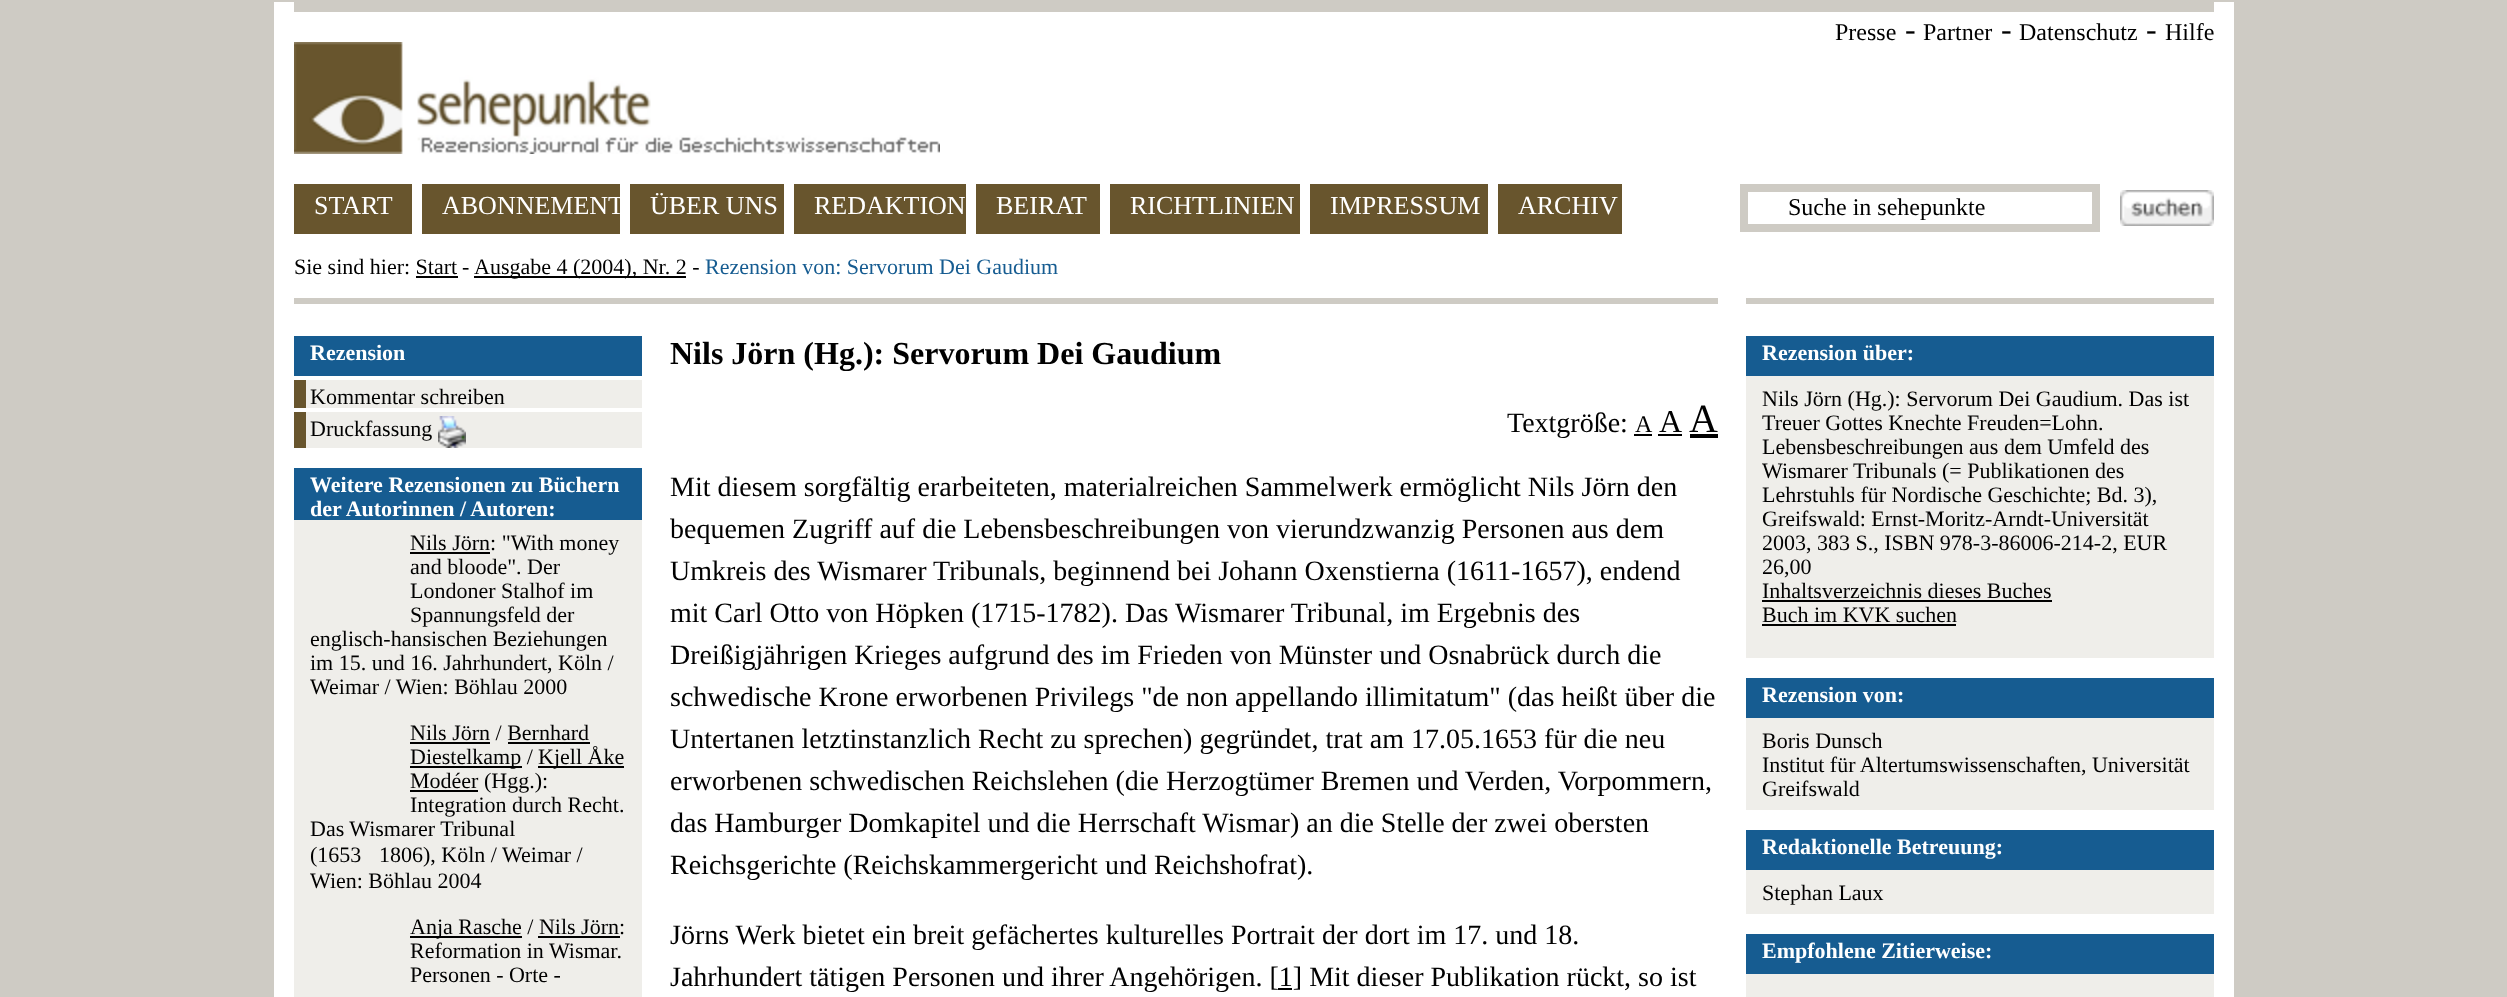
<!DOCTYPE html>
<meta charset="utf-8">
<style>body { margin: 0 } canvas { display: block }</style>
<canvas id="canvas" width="2507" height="997"></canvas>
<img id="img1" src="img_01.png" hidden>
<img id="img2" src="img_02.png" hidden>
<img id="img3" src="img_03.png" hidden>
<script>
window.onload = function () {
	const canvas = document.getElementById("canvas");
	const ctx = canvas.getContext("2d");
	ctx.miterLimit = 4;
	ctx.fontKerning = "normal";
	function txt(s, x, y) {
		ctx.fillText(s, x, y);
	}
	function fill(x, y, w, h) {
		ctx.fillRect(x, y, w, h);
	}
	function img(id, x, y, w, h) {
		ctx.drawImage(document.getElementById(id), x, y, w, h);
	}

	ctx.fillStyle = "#CECBC4";
	fill(0, 0, 2507, 997);
	ctx.fillStyle = "#FFFFFF";
	fill(274, 2, 1960, 995);
	ctx.fillStyle = "#CECBC4";
	fill(294, 2, 1920, 10);
	img("img1", 294, 42, 646, 112);
	ctx.fillStyle = "#68552D";
	fill(294, 184, 118, 50);
	fill(422, 184, 198, 50);
	fill(630, 184, 154, 50);
	fill(794, 184, 172, 50);
	fill(976, 184, 124, 50);
	fill(1110, 184, 190, 50);
	fill(1310, 184, 178, 50);
	fill(1498, 184, 124, 50);
	ctx.strokeStyle = "#CECBC4";
	ctx.lineWidth = 8;
	ctx.strokeRect(1744, 188, 352, 40);
	img("img2", 2120, 190, 94, 36);
	ctx.fillStyle = "#000000";
	fill(474, 276, 212, 2);
	fill(416, 276, 42, 2);
	ctx.fillStyle = "#CECBC4";
	fill(294, 298, 1424, 6);
	fill(1746, 298, 468, 6);
	ctx.fillStyle = "#165C91";
	fill(294, 336, 348, 40);
	ctx.fillStyle = "#68552D";
	fill(294, 380, 12, 28);
	ctx.fillStyle = "#EFEEEA";
	fill(306, 380, 336, 28);
	ctx.fillStyle = "#68552D";
	fill(294, 412, 12, 36);
	ctx.fillStyle = "#EFEEEA";
	fill(306, 412, 336, 36);
	img("img3", 438, 416, 28, 32);
	ctx.fillStyle = "#165C91";
	fill(294, 468, 348, 52);
	ctx.fillStyle = "#EFEEEA";
	fill(294, 520, 348, 477);
	ctx.fillStyle = "#000000";
	fill(410, 552, 80, 2);
	fill(410, 742, 80, 2);
	fill(508, 742, 82, 2);
	fill(410, 766, 112, 2);
	fill(538, 766, 86, 2);
	fill(410, 790, 68, 2);
	fill(410, 936, 112, 2);
	fill(538, 936, 82, 2);
	fill(1634, 434, 18, 2);
	fill(1658, 434, 24, 2);
	fill(1690, 434, 28, 4);
	fill(1278, 988, 14, 2);
	ctx.fillStyle = "#165C91";
	fill(1746, 336, 468, 40);
	ctx.fillStyle = "#EFEEEA";
	fill(1746, 376, 468, 282);
	ctx.fillStyle = "#000000";
	fill(1762, 600, 290, 2);
	fill(1762, 624, 194, 2);
	ctx.fillStyle = "#165C91";
	fill(1746, 678, 468, 40);
	ctx.fillStyle = "#EFEEEA";
	fill(1746, 718, 468, 92);
	ctx.fillStyle = "#165C91";
	fill(1746, 830, 468, 40);
	ctx.fillStyle = "#EFEEEA";
	fill(1746, 870, 468, 44);
	ctx.fillStyle = "#165C91";
	fill(1746, 934, 468, 40);
	ctx.fillStyle = "#EFEEEA";
	fill(1746, 974, 468, 23);
	ctx.font = "24px Liberation Serif";
	ctx.fillStyle = "#000000";
	txt("Presse", 1835, 40);
	ctx.font = "32px Liberation Serif";
	txt("-", 1905, 40);
	ctx.font = "24px Liberation Serif";
	txt("Partner", 1923, 40);
	ctx.font = "32px Liberation Serif";
	txt("-", 2001, 40);
	ctx.font = "24px Liberation Serif";
	txt("Datenschutz", 2019, 40);
	ctx.font = "32px Liberation Serif";
	txt("-", 2146, 40);
	ctx.font = "24px Liberation Serif";
	txt("Hilfe", 2165, 40);
	ctx.font = "26px Liberation Serif";
	ctx.fillStyle = "#FFFFFF";
	txt("START", 314, 214);
	txt("ABONNEMENT", 442, 214);
	txt("ÜBER UNS", 650, 214);
	txt("REDAKTION", 814, 214);
	txt("BEIRAT", 996, 214);
	txt("RICHTLINIEN", 1130, 214);
	txt("IMPRESSUM", 1330, 214);
	txt("ARCHIV", 1518, 214);
	ctx.font = "24px Liberation Serif";
	ctx.fillStyle = "#000000";
	txt("Suche in sehepunkte", 1788, 215);
	ctx.font = "22px Liberation Serif";
	txt("Sie sind hier: Start", 294, 274);
	txt("-", 462, 274);
	txt("Ausgabe 4 (2004), Nr. 2 -", 474, 274);
	ctx.fillStyle = "#165C91";
	txt("Rezension von: Servorum Dei Gaudium", 705, 274);
	ctx.font = "bold 22px Liberation Serif";
	ctx.fillStyle = "#FFFFFF";
	txt("Rezension", 310, 360);
	ctx.font = "22px Liberation Serif";
	ctx.fillStyle = "#000000";
	txt("Kommentar schreiben", 310, 404);
	txt("Druckfassung", 310, 436);
	ctx.font = "bold 22px Liberation Serif";
	ctx.fillStyle = "#FFFFFF";
	txt("Weitere Rezensionen zu Büchern", 310, 492);
	txt("der Autorinnen / Autoren:", 310, 516);
	ctx.font = "22px Liberation Serif";
	ctx.fillStyle = "#000000";
	txt("Nils Jörn: \"With money", 410, 550);
	txt("and bloode\". Der", 410, 574);
	txt("Londoner Stalhof im", 410, 598);
	txt("Spannungsfeld der", 410, 622);
	txt("englisch-hansischen Beziehungen", 310, 646);
	txt("im 15. und 16. Jahrhundert, Köln /", 310, 670);
	txt("Weimar / Wien: Böhlau 2000", 310, 694);
	txt("Nils Jörn / Bernhard", 410, 740);
	txt("Diestelkamp /", 410, 764);
	txt("Kjell Åke", 538, 764);
	txt("Modéer (Hgg.):", 410, 788);
	txt("Integration durch Recht.", 410, 812);
	txt("Das Wismarer Tribunal", 310, 836);
	txt("(1653", 310, 862);
	txt("1806), Köln / Weimar /", 379, 862);
	txt("Wien: Böhlau 2004", 310, 888);
	txt("Anja Rasche / Nils Jörn:", 410, 934);
	txt("Reformation in Wismar.", 410, 958);
	txt("Personen - Orte -", 410, 982);
	ctx.font = "bold 32px Liberation Serif";
	txt("Nils Jörn (Hg.): Servorum Dei Gaudium", 670, 364);
	ctx.font = "28px Liberation Serif";
	txt("Textgröße:", 1507, 432);
	ctx.font = "24px Liberation Serif";
	txt("A", 1635, 432);
	ctx.font = "32px Liberation Serif";
	txt("A", 1659, 432);
	ctx.font = "40px Liberation Serif";
	txt("A", 1689, 432);
	ctx.font = "28px Liberation Serif";
	txt("Mit diesem sorgfältig erarbeiteten, materialreichen Sammelwerk ermöglicht Nils Jörn den", 670, 496);
	txt("bequemen Zugriff auf die Lebensbeschreibungen von vierundzwanzig Personen aus dem", 670, 538);
	txt("Umkreis des Wismarer Tribunals, beginnend bei Johann Oxenstierna (1611-1657), endend", 670, 580);
	txt("mit Carl Otto von Höpken (1715-1782). Das Wismarer Tribunal, im Ergebnis des", 670, 622);
	txt("Dreißigjährigen Krieges aufgrund des im Frieden von Münster und Osnabrück durch die", 670, 664);
	txt("schwedische Krone erworbenen Privilegs \"de non appellando illimitatum\" (das heißt über die", 670, 706);
	txt("Untertanen letztinstanzlich Recht zu sprechen) gegründet, trat am 17.05.1653 für die neu", 670, 748);
	txt("erworbenen schwedischen Reichslehen (die Herzogtümer Bremen und Verden, Vorpommern,", 670, 790);
	txt("das Hamburger Domkapitel und die Herrschaft Wismar) an die Stelle der zwei obersten", 670, 832);
	txt("Reichsgerichte (Reichskammergericht und Reichshofrat).", 670, 874);
	txt("Jörns Werk bietet ein breit gefächertes kulturelles Portrait der dort im 17. und 18.", 670, 944);
	txt("Jahrhundert tätigen Personen und ihrer Angehörigen. [1] Mit dieser Publikation rückt, so ist", 670, 986);
	ctx.font = "bold 22px Liberation Serif";
	ctx.fillStyle = "#FFFFFF";
	txt("Rezension über:", 1762, 360);
	ctx.font = "22px Liberation Serif";
	ctx.fillStyle = "#000000";
	txt("Nils Jörn (Hg.): Servorum Dei Gaudium. Das ist", 1762, 406);
	txt("Treuer Gottes Knechte Freuden=Lohn.", 1762, 430);
	txt("Lebensbeschreibungen aus dem Umfeld des", 1762, 454);
	txt("Wismarer Tribunals (= Publikationen des", 1762, 478);
	txt("Lehrstuhls für Nordische Geschichte; Bd. 3),", 1762, 502);
	txt("Greifswald: Ernst-Moritz-Arndt-Universität", 1762, 526);
	txt("2003, 383 S., ISBN 978-3-86006-214-2, EUR", 1762, 550);
	txt("26,00", 1762, 574);
	txt("Inhaltsverzeichnis dieses Buches", 1762, 598);
	txt("Buch im KVK suchen", 1762, 622);
	ctx.font = "bold 22px Liberation Serif";
	ctx.fillStyle = "#FFFFFF";
	txt("Rezension von:", 1762, 702);
	ctx.font = "22px Liberation Serif";
	ctx.fillStyle = "#000000";
	txt("Boris Dunsch", 1762, 748);
	txt("Institut für Altertumswissenschaften, Universität", 1762, 772);
	txt("Greifswald", 1762, 796);
	ctx.font = "bold 22px Liberation Serif";
	ctx.fillStyle = "#FFFFFF";
	txt("Redaktionelle Betreuung:", 1762, 854);
	ctx.font = "22px Liberation Serif";
	ctx.fillStyle = "#000000";
	txt("Stephan Laux", 1762, 900);
	ctx.font = "bold 22px Liberation Serif";
	ctx.fillStyle = "#FFFFFF";
	txt("Empfohlene Zitierweise:", 1762, 958);
};
</script>
